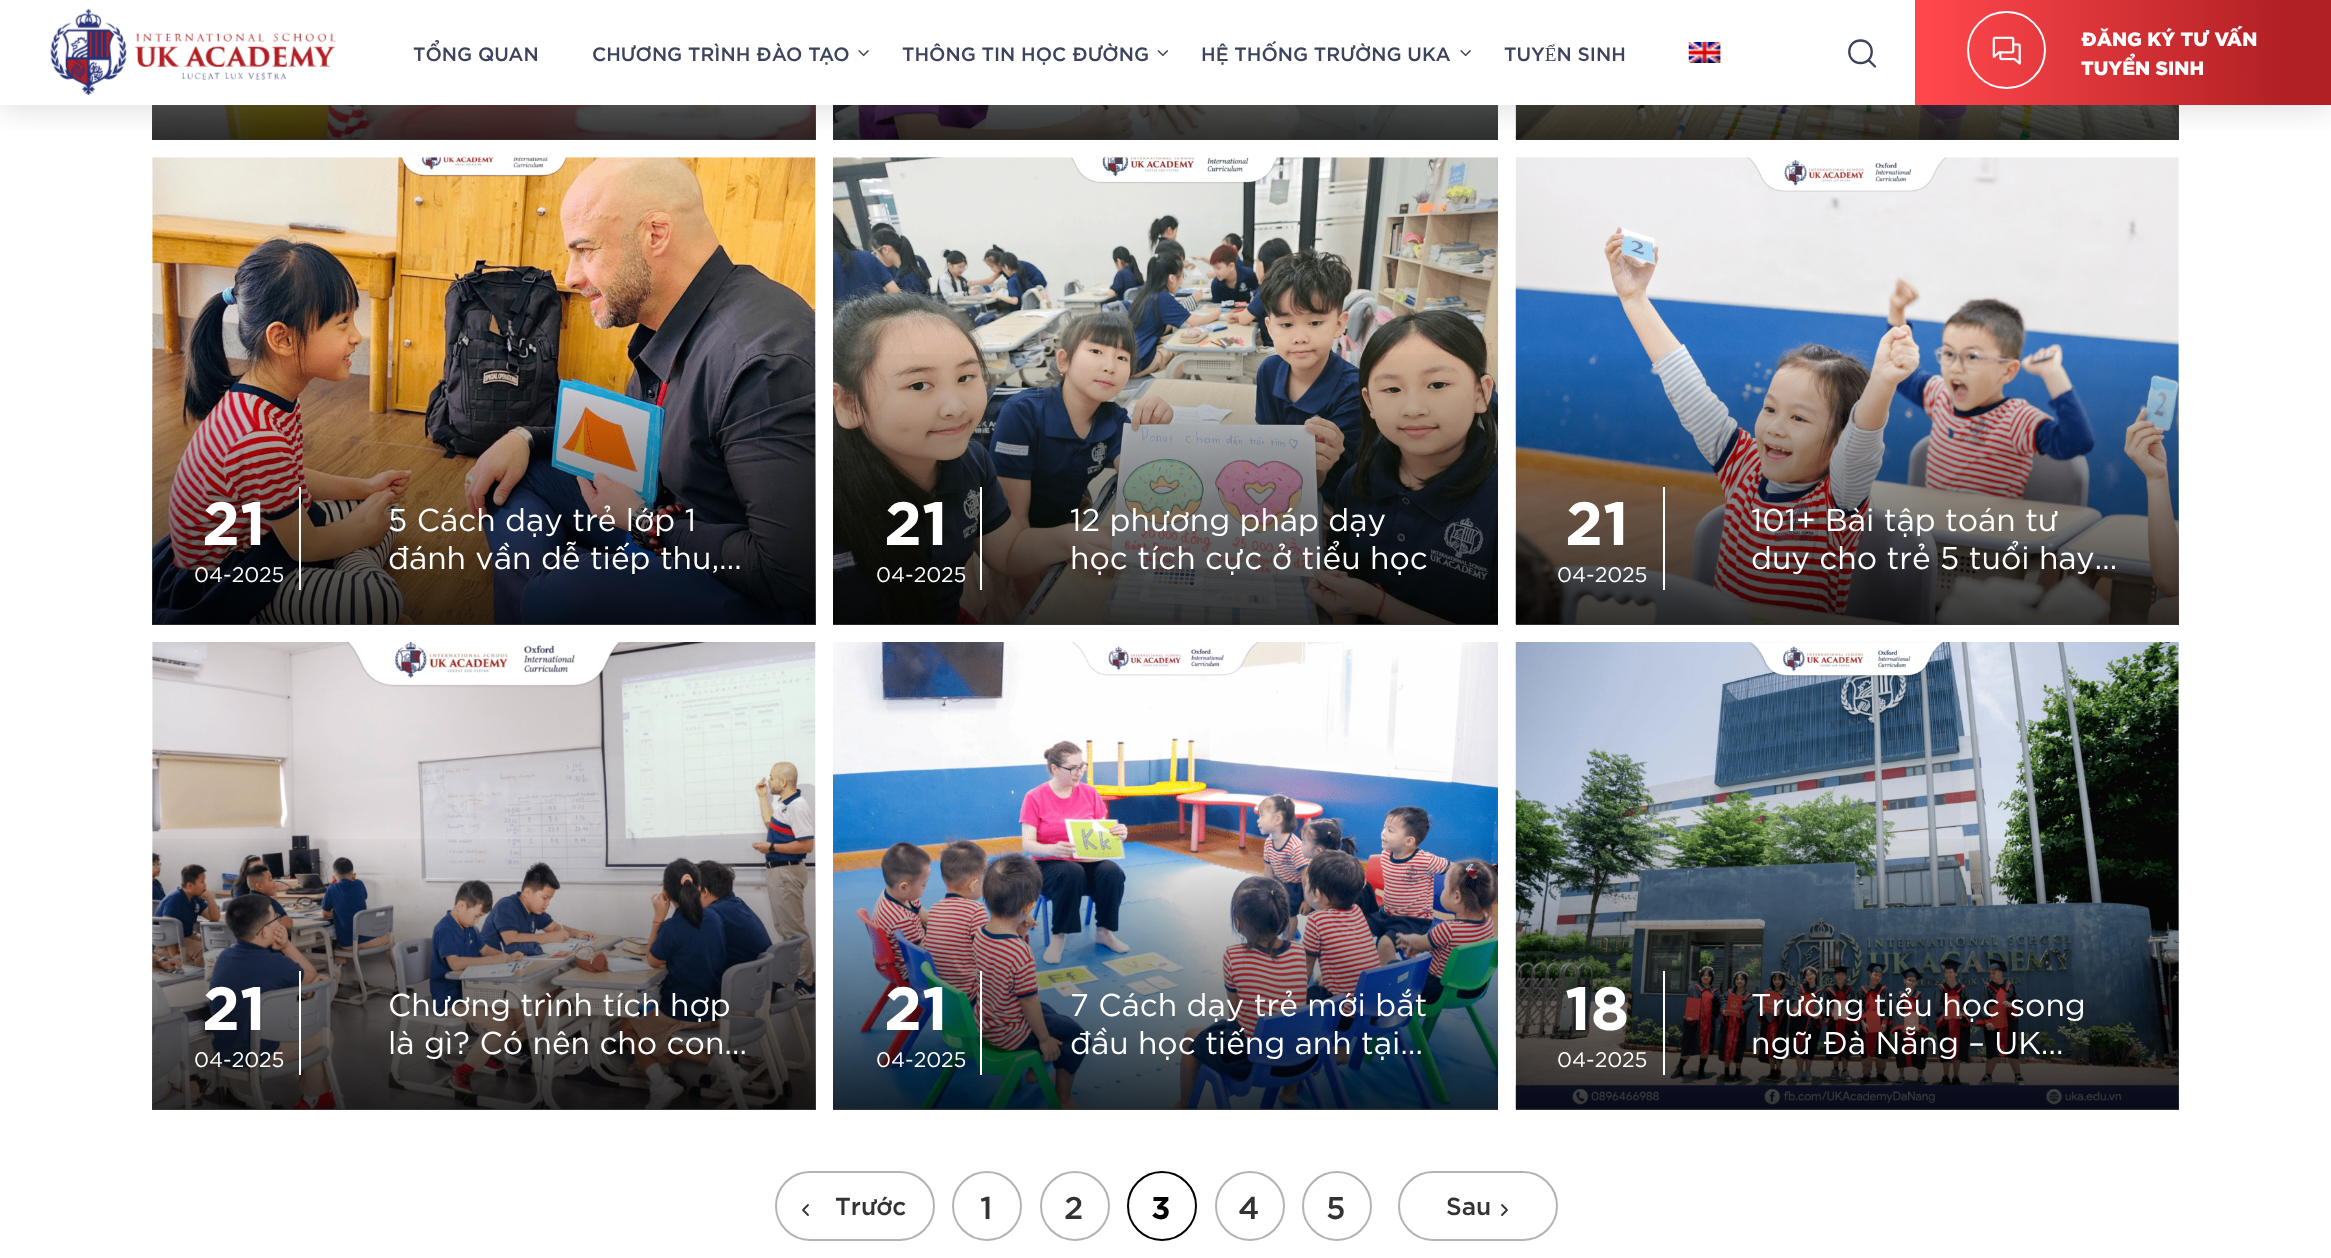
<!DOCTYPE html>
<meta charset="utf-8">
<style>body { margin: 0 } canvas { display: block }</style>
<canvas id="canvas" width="2331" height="1258"></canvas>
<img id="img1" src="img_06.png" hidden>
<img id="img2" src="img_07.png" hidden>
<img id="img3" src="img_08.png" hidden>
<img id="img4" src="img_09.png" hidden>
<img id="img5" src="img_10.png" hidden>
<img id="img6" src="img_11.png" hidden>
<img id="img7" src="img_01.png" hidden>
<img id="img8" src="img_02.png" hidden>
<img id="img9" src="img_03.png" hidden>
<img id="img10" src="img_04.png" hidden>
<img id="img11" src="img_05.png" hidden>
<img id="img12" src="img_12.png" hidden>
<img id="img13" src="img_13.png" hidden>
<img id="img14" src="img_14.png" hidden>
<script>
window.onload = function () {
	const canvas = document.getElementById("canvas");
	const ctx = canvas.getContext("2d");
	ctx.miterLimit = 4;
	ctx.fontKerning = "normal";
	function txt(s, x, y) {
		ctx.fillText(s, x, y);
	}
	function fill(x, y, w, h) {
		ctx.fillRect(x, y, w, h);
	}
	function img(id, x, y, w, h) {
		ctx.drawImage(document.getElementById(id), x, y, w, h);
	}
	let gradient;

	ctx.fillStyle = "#FFFFFF";
	fill(0, 0, 2331, 1258);
	img("img1", 152, 105, 664, 35);
	gradient = ctx.createLinearGradient(484, -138, 484, 140);
	gradient.addColorStop(0, "rgba(0, 0, 0, 0)");
	gradient.addColorStop(1, "rgba(0, 0, 0, 0.8)");
	ctx.fillStyle = gradient;
	fill(152, 105, 664, 35);
	img("img2", 833, 105, 665, 35);
	gradient = ctx.createLinearGradient(1166, -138, 1166, 140);
	gradient.addColorStop(0, "rgba(0, 0, 0, 0)");
	gradient.addColorStop(1, "rgba(0, 0, 0, 0.8)");
	ctx.fillStyle = gradient;
	fill(833, 105, 665, 35);
	img("img3", 1515, 105, 664, 35);
	gradient = ctx.createLinearGradient(1847, -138, 1847, 140);
	gradient.addColorStop(0, "rgba(0, 0, 0, 0)");
	gradient.addColorStop(1, "rgba(0, 0, 0, 0.8)");
	ctx.fillStyle = gradient;
	fill(1516, 105, 663, 35);
	img("img4", 152, 157, 664, 468);
	img("img5", 833, 157, 665, 468);
	img("img6", 1515, 157, 664, 468);
	ctx.save();
	ctx.beginPath();
	ctx.rect(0, 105, 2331, 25);
	ctx.clip();
	ctx.fillStyle = "rgba(88, 88, 88, 0.25)";
	ctx.filter = "blur(17.5px)";
	ctx.beginPath();
	ctx.rect(0, 0, 2331, 105);
	ctx.fill();
	ctx.filter = "none";
	ctx.restore();
	img("img7", 50, 8, 286, 88);
	img("img8", 858, 50, 11, 7);
	img("img9", 1157, 50, 12, 7);
	img("img8", 1460, 50, 11, 7);
	img("img10", 1688, 42, 33, 21);
	ctx.beginPath();
	ctx.moveTo(1860.5, 63);
	ctx.bezierCurveTo(1875.5, 63, 1875.5, 40.5, 1860.5, 40.5);
	ctx.bezierCurveTo(1845.5, 40.5, 1845.5, 63, 1860.5, 63);
	ctx.closePath();
	ctx.moveTo(1868.5, 60);
	ctx.lineTo(1875, 66.5);
	ctx.strokeStyle = "#3D415D";
	ctx.lineWidth = 2.3;
	ctx.lineCap = "round";
	ctx.lineJoin = "round";
	ctx.stroke();
	gradient = ctx.createLinearGradient(1915, 53, 2331, 52);
	gradient.addColorStop(0.03, "#FF474C");
	gradient.addColorStop(0.89, "#B12024");
	ctx.fillStyle = gradient;
	fill(1915, 0, 416, 105);
	ctx.beginPath();
	ctx.roundRect(1968, 12, 77, 76, 38);
	ctx.strokeStyle = "#FFFFFF";
	ctx.lineWidth = 2;
	ctx.lineJoin = "miter";
	ctx.stroke();
	img("img11", 1992, 36, 29, 29);
	gradient = ctx.createLinearGradient(484, 346, 484, 625);
	gradient.addColorStop(0, "rgba(0, 0, 0, 0)");
	gradient.addColorStop(1, "rgba(0, 0, 0, 0.8)");
	ctx.fillStyle = gradient;
	fill(152, 354, 664, 271);
	ctx.fillStyle = "#FFFFFF";
	fill(299, 487, 2, 103);
	gradient = ctx.createLinearGradient(1166, 346, 1166, 625);
	gradient.addColorStop(0, "rgba(0, 0, 0, 0)");
	gradient.addColorStop(1, "rgba(0, 0, 0, 0.8)");
	ctx.fillStyle = gradient;
	fill(833, 354, 665, 271);
	ctx.fillStyle = "#FFFFFF";
	fill(980, 487, 2, 103);
	gradient = ctx.createLinearGradient(1847, 346, 1847, 625);
	gradient.addColorStop(0, "rgba(0, 0, 0, 0)");
	gradient.addColorStop(1, "rgba(0, 0, 0, 0.8)");
	ctx.fillStyle = gradient;
	fill(1516, 354, 663, 271);
	ctx.fillStyle = "#FFFFFF";
	fill(1663, 487, 2, 103);
	img("img12", 152, 642, 664, 468);
	gradient = ctx.createLinearGradient(484, 831, 484, 1110);
	gradient.addColorStop(0, "rgba(0, 0, 0, 0)");
	gradient.addColorStop(1, "rgba(0, 0, 0, 0.8)");
	ctx.fillStyle = gradient;
	fill(152, 839, 664, 271);
	ctx.fillStyle = "#FFFFFF";
	fill(299, 971, 2, 104);
	img("img13", 833, 642, 665, 468);
	gradient = ctx.createLinearGradient(1166, 831, 1166, 1110);
	gradient.addColorStop(0, "rgba(0, 0, 0, 0)");
	gradient.addColorStop(1, "rgba(0, 0, 0, 0.8)");
	ctx.fillStyle = gradient;
	fill(833, 839, 665, 271);
	ctx.fillStyle = "#FFFFFF";
	fill(980, 971, 2, 104);
	img("img14", 1515, 642, 664, 468);
	gradient = ctx.createLinearGradient(1847, 831, 1847, 1110);
	gradient.addColorStop(0, "rgba(0, 0, 0, 0)");
	gradient.addColorStop(1, "rgba(0, 0, 0, 0.8)");
	ctx.fillStyle = gradient;
	fill(1516, 839, 663, 271);
	ctx.fillStyle = "#FFFFFF";
	fill(1663, 971, 2, 104);
	ctx.beginPath();
	ctx.roundRect(776, 1172, 158, 68, 34);
	ctx.strokeStyle = "#B3B3B3";
	ctx.stroke();
	ctx.beginPath();
	ctx.moveTo(808, 1215);
	ctx.lineTo(803, 1210);
	ctx.lineTo(808, 1205);
	ctx.strokeStyle = "#333333";
	ctx.lineWidth = 1.8;
	ctx.lineJoin = "round";
	ctx.stroke();
	ctx.beginPath();
	ctx.arc(987, 1206, 34, 0, Math.PI * 2);
	ctx.strokeStyle = "#B3B3B3";
	ctx.lineWidth = 2;
	ctx.stroke();
	ctx.beginPath();
	ctx.arc(1075, 1206, 34, 0, Math.PI * 2);
	ctx.stroke();
	ctx.beginPath();
	ctx.arc(1162, 1206, 34, 0, Math.PI * 2);
	ctx.strokeStyle = "#000000";
	ctx.stroke();
	ctx.beginPath();
	ctx.arc(1250, 1206, 34, 0, Math.PI * 2);
	ctx.strokeStyle = "#B3B3B3";
	ctx.stroke();
	ctx.beginPath();
	ctx.arc(1337, 1206, 34, 0, Math.PI * 2);
	ctx.stroke();
	ctx.beginPath();
	ctx.roundRect(1399, 1172, 158, 68, 34);
	ctx.lineJoin = "miter";
	ctx.stroke();
	ctx.beginPath();
	ctx.moveTo(1502, 1205);
	ctx.lineTo(1507, 1210);
	ctx.lineTo(1502, 1215);
	ctx.strokeStyle = "#333333";
	ctx.lineWidth = 1.8;
	ctx.lineJoin = "round";
	ctx.stroke();
	ctx.font = "19.25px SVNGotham";
	ctx.fillStyle = "#3D425D";
	txt("TỔNG QUAN", 413, 61);
	txt("CHƯƠNG TRÌNH ĐÀO TẠO", 592, 61);
	txt("THÔNG TIN HỌC ĐƯỜNG", 902, 61);
	txt("HỆ THỐNG TRƯỜNG UKA", 1201, 61);
	txt("TUYỂN SINH", 1504, 61);
	ctx.font = "900 19.25px SVNGotham";
	ctx.fillStyle = "#FFFFFF";
	txt("ĐĂNG KÝ TƯ VẤN", 2081, 46);
	txt("TUYỂN SINH", 2081, 75);
	ctx.font = "bold 61px SVNGotham";
	txt("21", 202, 545);
	ctx.font = "21px 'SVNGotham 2'";
	txt("04-2025", 194, 582);
	ctx.font = "31.5px 'SVNGotham 2'";
	txt("5 Cách dạy trẻ lớp 1", 388, 531);
	txt("đánh vần dễ tiếp thu,…", 388, 569);
	ctx.font = "bold 61px SVNGotham";
	txt("21", 884, 545);
	ctx.font = "21px 'SVNGotham 2'";
	txt("04-2025", 876, 582);
	ctx.font = "31.5px 'SVNGotham 2'";
	txt("12 phương pháp dạy", 1070, 531);
	txt("học tích cực ở tiểu học", 1070, 569);
	ctx.font = "bold 61px SVNGotham";
	txt("21", 1565, 545);
	ctx.font = "21px 'SVNGotham 2'";
	txt("04-2025", 1557, 582);
	ctx.font = "31.5px 'SVNGotham 2'";
	txt("101+ Bài tập toán tư", 1751, 531);
	txt("duy cho trẻ 5 tuổi hay…", 1751, 569);
	ctx.font = "bold 61px SVNGotham";
	txt("21", 202, 1030);
	ctx.font = "21px 'SVNGotham 2'";
	txt("04-2025", 194, 1067);
	ctx.font = "31.5px 'SVNGotham 2'";
	txt("Chương trình tích hợp", 388, 1016);
	txt("là gì? Có nên cho con…", 388, 1054);
	ctx.font = "bold 61px SVNGotham";
	txt("21", 884, 1030);
	ctx.font = "21px 'SVNGotham 2'";
	txt("04-2025", 876, 1067);
	ctx.font = "31.5px 'SVNGotham 2'";
	txt("7 Cách dạy trẻ mới bắt", 1070, 1016);
	txt("đầu học tiếng anh tại…", 1070, 1054);
	ctx.font = "bold 61px SVNGotham";
	txt("18", 1565, 1030);
	ctx.font = "21px 'SVNGotham 2'";
	txt("04-2025", 1557, 1067);
	ctx.font = "31.5px 'SVNGotham 2'";
	txt("Trường tiểu học song", 1751, 1016);
	txt("ngữ Đà Nẵng – UK…", 1751, 1054);
	ctx.font = "24.5px SVNGotham";
	ctx.fillStyle = "#333333";
	txt("Trước", 835, 1215);
	ctx.font = "31.5px SVNGotham";
	txt("1", 980, 1219);
	txt("2", 1064, 1219);
	ctx.font = "bold 31.5px SVNGotham";
	ctx.fillStyle = "#000000";
	txt("3", 1151, 1219);
	ctx.font = "31.5px SVNGotham";
	ctx.fillStyle = "#333333";
	txt("4", 1238, 1219);
	txt("5", 1326, 1219);
	ctx.font = "24.5px SVNGotham";
	txt("Sau", 1446, 1215);
};
</script>
